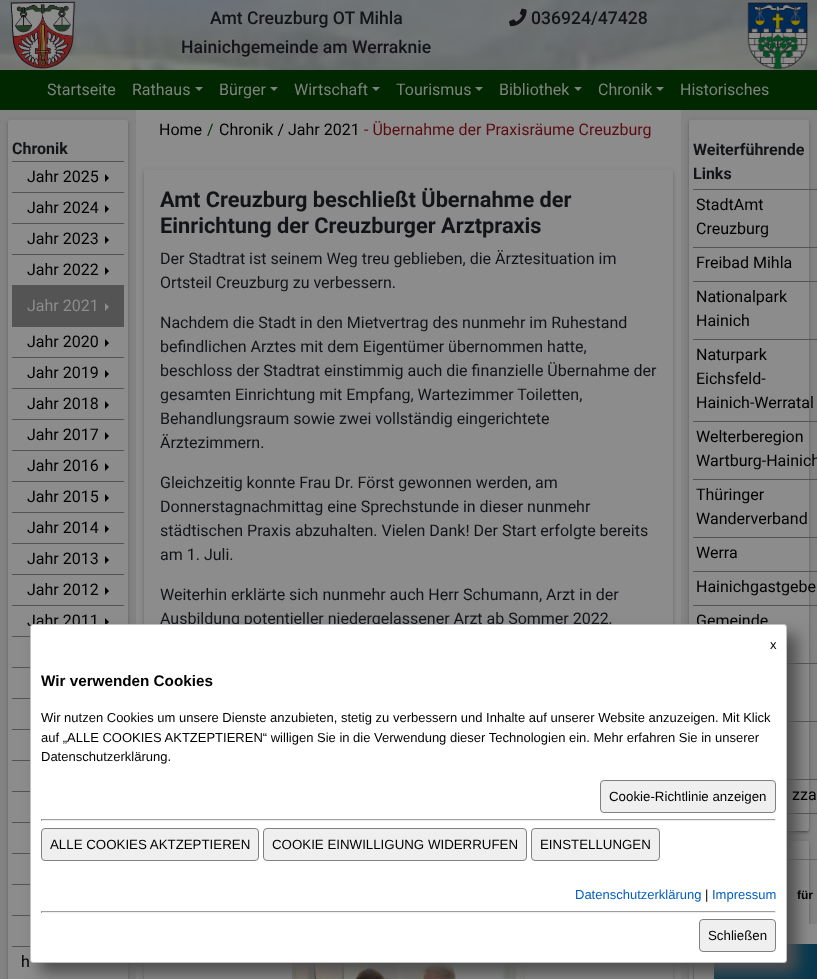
<!DOCTYPE html>
<meta charset="utf-8">
<style>body { margin: 0 } canvas { display: block }</style>
<canvas id="canvas" width="817" height="979"></canvas>
<img id="img1" src="img_01.png" hidden>
<img id="img2" src="img_02.png" hidden>
<img id="img3" src="img_03.png" hidden>
<img id="img4" src="img_04.png" hidden>
<img id="img5" src="img_05.png" hidden>
<img id="img6" src="img_06.png" hidden>
<script>
window.onload = function () {
	const canvas = document.getElementById("canvas");
	const ctx = canvas.getContext("2d");
	ctx.miterLimit = 4;
	ctx.fontKerning = "normal";
	function txt(s, x, y) {
		ctx.fillText(s, x, y);
	}
	function fill(x, y, w, h) {
		ctx.fillRect(x, y, w, h);
	}
	function round(x, y, w, h, r) {
		ctx.beginPath();
		ctx.roundRect(x, y, w, h, r);
		ctx.fill();
	}
	function img(id, x, y, w, h) {
		ctx.drawImage(document.getElementById(id), x, y, w, h);
	}

	ctx.fillStyle = "#8C8C8C";
	fill(0, 0, 817, 979);
	img("img1", 0, 0, 817, 70);
	img("img2", 10, 1, 66, 68);
	img("img3", 509, 8, 18, 19);
	img("img4", 747, 2, 62, 68);
	ctx.fillStyle = "#002700";
	fill(0, 70, 817, 40);
	ctx.fillStyle = "#7F827F";
	ctx.beginPath();
	ctx.moveTo(195, 87);
	ctx.lineTo(203, 87);
	ctx.lineTo(199, 91);
	ctx.closePath();
	ctx.fill();
	ctx.beginPath();
	ctx.moveTo(270, 87);
	ctx.lineTo(278, 87);
	ctx.lineTo(274, 91);
	ctx.closePath();
	ctx.fill();
	ctx.beginPath();
	ctx.moveTo(372, 87);
	ctx.lineTo(380, 87);
	ctx.lineTo(376, 91);
	ctx.closePath();
	ctx.fill();
	ctx.beginPath();
	ctx.moveTo(475, 87);
	ctx.lineTo(483, 87);
	ctx.lineTo(479, 91);
	ctx.closePath();
	ctx.fill();
	ctx.beginPath();
	ctx.moveTo(574, 87);
	ctx.lineTo(582, 87);
	ctx.lineTo(578, 91);
	ctx.closePath();
	ctx.fill();
	ctx.beginPath();
	ctx.moveTo(656, 87);
	ctx.lineTo(664, 87);
	ctx.lineTo(660, 91);
	ctx.closePath();
	ctx.fill();
	ctx.fillStyle = "#838383";
	fill(0, 110, 136, 869);
	ctx.fillStyle = "rgba(0, 0, 0, 0.12)";
	ctx.filter = "blur(2.5px)";
	ctx.beginPath();
	ctx.roundRect(8, 121, 120, 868, 2);
	ctx.fill();
	ctx.filter = "none";
	ctx.fillStyle = "rgba(0, 0, 0, 0.2)";
	ctx.filter = "blur(1px)";
	ctx.beginPath();
	ctx.roundRect(8, 122, 120, 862, 2);
	ctx.fill();
	ctx.filter = "none";
	ctx.fillStyle = "#8C8C8C";
	round(8, 120, 120, 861, 2);
	ctx.fillStyle = "#545454";
	fill(12, 161, 112, 1);
	fill(12, 192, 112, 1);
	ctx.fillStyle = "#000000";
	ctx.beginPath();
	ctx.moveTo(105, 182);
	ctx.lineTo(105, 174);
	ctx.lineTo(109, 178);
	ctx.closePath();
	ctx.fill();
	ctx.fillStyle = "#545454";
	fill(12, 223, 112, 1);
	ctx.fillStyle = "#000000";
	ctx.beginPath();
	ctx.moveTo(105, 213);
	ctx.lineTo(105, 205);
	ctx.lineTo(109, 209);
	ctx.closePath();
	ctx.fill();
	ctx.fillStyle = "#545454";
	fill(12, 254, 112, 1);
	ctx.fillStyle = "#000000";
	ctx.beginPath();
	ctx.moveTo(105, 244);
	ctx.lineTo(105, 236);
	ctx.lineTo(109, 240);
	ctx.closePath();
	ctx.fill();
	ctx.fillStyle = "#545454";
	fill(12, 285, 112, 1);
	ctx.fillStyle = "#000000";
	ctx.beginPath();
	ctx.moveTo(105, 275);
	ctx.lineTo(105, 267);
	ctx.lineTo(109, 271);
	ctx.closePath();
	ctx.fill();
	ctx.fillStyle = "#545454";
	fill(12, 286, 112, 41);
	ctx.fillStyle = "#8C8C8C";
	ctx.beginPath();
	ctx.moveTo(105, 311);
	ctx.lineTo(105, 303);
	ctx.lineTo(109, 307);
	ctx.closePath();
	ctx.fill();
	ctx.fillStyle = "#545454";
	fill(12, 357, 112, 1);
	ctx.fillStyle = "#000000";
	ctx.beginPath();
	ctx.moveTo(105, 347);
	ctx.lineTo(105, 339);
	ctx.lineTo(109, 343);
	ctx.closePath();
	ctx.fill();
	ctx.fillStyle = "#545454";
	fill(12, 388, 112, 1);
	ctx.fillStyle = "#000000";
	ctx.beginPath();
	ctx.moveTo(105, 378);
	ctx.lineTo(105, 370);
	ctx.lineTo(109, 374);
	ctx.closePath();
	ctx.fill();
	ctx.fillStyle = "#545454";
	fill(12, 419, 112, 1);
	ctx.fillStyle = "#000000";
	ctx.beginPath();
	ctx.moveTo(105, 409);
	ctx.lineTo(105, 401);
	ctx.lineTo(109, 405);
	ctx.closePath();
	ctx.fill();
	ctx.fillStyle = "#545454";
	fill(12, 450, 112, 1);
	ctx.fillStyle = "#000000";
	ctx.beginPath();
	ctx.moveTo(105, 440);
	ctx.lineTo(105, 432);
	ctx.lineTo(109, 436);
	ctx.closePath();
	ctx.fill();
	ctx.fillStyle = "#545454";
	fill(12, 481, 112, 1);
	ctx.fillStyle = "#000000";
	ctx.beginPath();
	ctx.moveTo(105, 471);
	ctx.lineTo(105, 463);
	ctx.lineTo(109, 467);
	ctx.closePath();
	ctx.fill();
	ctx.fillStyle = "#545454";
	fill(12, 512, 112, 1);
	ctx.fillStyle = "#000000";
	ctx.beginPath();
	ctx.moveTo(105, 502);
	ctx.lineTo(105, 494);
	ctx.lineTo(109, 498);
	ctx.closePath();
	ctx.fill();
	ctx.fillStyle = "#545454";
	fill(12, 543, 112, 1);
	ctx.fillStyle = "#000000";
	ctx.beginPath();
	ctx.moveTo(105, 533);
	ctx.lineTo(105, 525);
	ctx.lineTo(109, 529);
	ctx.closePath();
	ctx.fill();
	ctx.fillStyle = "#545454";
	fill(12, 574, 112, 1);
	ctx.fillStyle = "#000000";
	ctx.beginPath();
	ctx.moveTo(105, 564);
	ctx.lineTo(105, 556);
	ctx.lineTo(109, 560);
	ctx.closePath();
	ctx.fill();
	ctx.fillStyle = "#545454";
	fill(12, 605, 112, 1);
	ctx.fillStyle = "#000000";
	ctx.beginPath();
	ctx.moveTo(105, 595);
	ctx.lineTo(105, 587);
	ctx.lineTo(109, 591);
	ctx.closePath();
	ctx.fill();
	ctx.fillStyle = "#545454";
	fill(12, 636, 18, 1);
	ctx.fillStyle = "#000000";
	ctx.beginPath();
	ctx.moveTo(105, 626);
	ctx.lineTo(105, 618);
	ctx.lineTo(109, 622);
	ctx.closePath();
	ctx.fill();
	ctx.fillStyle = "#545454";
	fill(12, 667, 18, 1);
	fill(12, 698, 18, 1);
	fill(12, 729, 18, 1);
	fill(12, 760, 18, 1);
	fill(12, 791, 18, 1);
	fill(12, 822, 18, 1);
	fill(12, 853, 18, 1);
	fill(12, 884, 18, 1);
	fill(12, 915, 18, 1);
	fill(12, 946, 18, 1);
	ctx.fillStyle = "rgba(0, 0, 0, 0.12)";
	ctx.filter = "blur(2.5px)";
	ctx.beginPath();
	ctx.roundRect(144, 171, 529, 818, 2);
	ctx.fill();
	ctx.filter = "none";
	ctx.fillStyle = "rgba(0, 0, 0, 0.2)";
	ctx.filter = "blur(1px)";
	ctx.beginPath();
	ctx.roundRect(144, 172, 529, 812, 2);
	ctx.fill();
	ctx.filter = "none";
	ctx.fillStyle = "#8C8C8C";
	round(144, 170, 529, 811, 2);
	img("img5", 292, 963, 233, 16);
	ctx.fillStyle = "#838383";
	fill(681, 110, 136, 869);
	ctx.fillStyle = "rgba(0, 0, 0, 0.12)";
	ctx.filter = "blur(2.5px)";
	ctx.beginPath();
	ctx.roundRect(689, 121, 120, 711, 2);
	ctx.fill();
	ctx.filter = "none";
	ctx.fillStyle = "rgba(0, 0, 0, 0.14)";
	ctx.filter = "blur(0.5px)";
	ctx.beginPath();
	ctx.rect(691, 125, 116, 707);
	ctx.fill();
	ctx.filter = "none";
	ctx.fillStyle = "rgba(0, 0, 0, 0.2)";
	ctx.filter = "blur(1px)";
	ctx.beginPath();
	ctx.roundRect(689, 122, 120, 711, 2);
	ctx.fill();
	ctx.filter = "none";
	ctx.fillStyle = "#8C8C8C";
	round(689, 120, 120, 711, 2);
	ctx.fillStyle = "#545454";
	fill(693, 189, 124, 1);
	fill(693, 247, 124, 1);
	fill(693, 281, 124, 1);
	fill(693, 339, 124, 1);
	fill(693, 421, 124, 1);
	fill(693, 479, 124, 1);
	fill(693, 537, 124, 1);
	fill(693, 571, 124, 1);
	fill(693, 605, 124, 1);
	fill(787, 663, 30, 1);
	fill(787, 721, 30, 1);
	fill(787, 779, 30, 1);
	fill(787, 813, 30, 1);
	ctx.fillStyle = "rgba(0, 0, 0, 0.12)";
	ctx.filter = "blur(2.5px)";
	ctx.beginPath();
	ctx.roundRect(689, 842, 120, 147, 2);
	ctx.fill();
	ctx.filter = "none";
	ctx.fillStyle = "rgba(0, 0, 0, 0.2)";
	ctx.filter = "blur(1px)";
	ctx.beginPath();
	ctx.roundRect(689, 843, 120, 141, 2);
	ctx.fill();
	ctx.filter = "none";
	ctx.fillStyle = "#8C8C8C";
	round(689, 841, 120, 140, 2);
	ctx.strokeStyle = "#676767";
	ctx.strokeRect(693.5, 859.5, 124, 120);
	img("img6", 714, 924, 103, 55);
	ctx.fillStyle = "#4E4E4E";
	ctx.filter = "blur(7.5px)";
	ctx.beginPath();
	ctx.roundRect(40, 634, 757, 339, 3);
	ctx.fill();
	ctx.filter = "none";
	ctx.font = "500 17.6px Roboto";
	ctx.fillStyle = "#121417";
	txt("Amt Creuzburg OT Mihla", 210, 24);
	txt("Hainichgemeinde am Werraknie", 181, 53);
	txt("036924/47428", 531, 24);
	ctx.font = "16px Roboto";
	ctx.fillStyle = "#7F827F";
	txt("Startseite", 47, 95);
	txt("Rathaus", 132, 95);
	txt("Bürger", 219, 95);
	txt("Wirtschaft", 294, 95);
	txt("Tourismus", 396, 95);
	txt("Bibliothek", 499, 95);
	txt("Chronik", 598, 95);
	txt("Historisches", 680, 95);
	ctx.font = "bold 16px Roboto";
	ctx.fillStyle = "#121417";
	txt("Chronik", 12, 154);
	ctx.font = "16px Roboto";
	ctx.fillStyle = "#000000";
	txt("Jahr 2025", 27, 182);
	txt("Jahr 2024", 27, 213);
	txt("Jahr 2023", 27, 244);
	txt("Jahr 2022", 27, 275);
	ctx.fillStyle = "#8C8C8C";
	txt("Jahr 2021", 27, 311);
	ctx.fillStyle = "#000000";
	txt("Jahr 2020", 27, 347);
	txt("Jahr 2019", 27, 378);
	txt("Jahr 2018", 27, 409);
	txt("Jahr 2017", 27, 440);
	txt("Jahr 2016", 27, 471);
	txt("Jahr 2015", 27, 502);
	txt("Jahr 2014", 27, 533);
	txt("Jahr 2013", 27, 564);
	txt("Jahr 2012", 27, 595);
	txt("Jahr 2011", 27, 626);
	txt("h", 21, 967);
	txt("Home", 159, 135);
	ctx.fillStyle = "#002700";
	txt("/", 207, 135);
	ctx.fillStyle = "#000000";
	txt("Chronik / Jahr 2021", 219, 135);
	ctx.fillStyle = "#5C0C11";
	txt("- Übernahme der Praxisräume Creuzburg", 364, 135);
	ctx.font = "bold 21.75px Roboto";
	ctx.fillStyle = "#121417";
	txt("Amt Creuzburg beschließt Übernahme der", 160, 207);
	txt("Einrichtung der Creuzburger Arztpraxis", 160, 233);
	ctx.font = "16px Roboto";
	txt("Der Stadtrat ist seinem Weg treu geblieben, die Ärztesituation im", 160, 264);
	txt("Ortsteil Creuzburg zu verbessern.", 160, 288);
	txt("Nachdem die Stadt in den Mietvertrag des nunmehr im Ruhestand", 160, 328);
	txt("befindlichen Arztes mit dem Eigentümer übernommen hatte,", 160, 352);
	txt("beschloss der Stadtrat einstimmig auch die finanzielle Übernahme der", 160, 376);
	txt("gesamten Einrichtung mit Empfang, Wartezimmer Toiletten,", 160, 400);
	txt("Behandlungsraum sowie zwei vollständig eingerichtete", 160, 424);
	txt("Ärztezimmern.", 160, 448);
	txt("Gleichzeitig konnte Frau Dr. Först gewonnen werden, am", 160, 488);
	txt("Donnerstagnachmittag eine Sprechstunde in dieser nunmehr", 160, 512);
	txt("städtischen Praxis abzuhalten. Vielen Dank! Der Start erfolgte bereits", 160, 536);
	txt("am 1. Juli.", 160, 560);
	txt("Weiterhin erklärte sich nunmehr auch Herr Schumann, Arzt in der", 160, 600);
	txt("Ausbildung potentieller niedergelassener Arzt ab Sommer 2022,", 160, 624);
	ctx.font = "bold 16px Roboto";
	txt("Weiterführende", 693, 155);
	txt("Links", 693, 179);
	ctx.font = "16px Roboto";
	ctx.fillStyle = "#000000";
	txt("StadtAmt", 696, 210);
	txt("Creuzburg", 696, 234);
	txt("Freibad Mihla", 696, 268);
	txt("Nationalpark", 696, 302);
	txt("Hainich", 696, 326);
	txt("Naturpark", 696, 360);
	txt("Eichsfeld-", 696, 384);
	txt("Hainich-Werratal", 696, 408);
	txt("Welterberegion", 696, 442);
	txt("Wartburg-Hainich", 696, 466);
	txt("Thüringer", 696, 500);
	txt("Wanderverband", 696, 524);
	txt("Werra", 696, 558);
	txt("Hainichgastgebe", 696, 592);
	txt("Gemeinde", 696, 626);
	txt("zza", 792, 800);
	ctx.font = "bold 12px Liberation Sans";
	txt("für", 797, 899);
	ctx.fillStyle = "#FFFFFF";
	ctx.beginPath();
	ctx.roundRect(30.5, 624.5, 756, 338, 2.5);
	ctx.fill();
	ctx.strokeStyle = "#C0C0C0";
	ctx.stroke();
	ctx.font = "13px Liberation Sans";
	ctx.fillStyle = "#000000";
	txt("x", 770, 649);
	ctx.font = "bold 15.25px Liberation Sans";
	txt("Wir verwenden Cookies", 41, 686);
	ctx.font = "13px Liberation Sans";
	txt("Wir nutzen Cookies um unsere Dienste anzubieten, stetig zu verbessern und Inhalte auf unserer Website anzuzeigen. Mit Klick", 41, 722);
	txt("auf „ALLE COOKIES AKTZEPTIEREN“ willigen Sie in die Verwendung dieser Technologien ein. Mehr erfahren Sie in unserer", 41, 742);
	txt("Datenschutzerklärung.", 41, 761);
	ctx.fillStyle = "#EFEFEF";
	ctx.beginPath();
	ctx.roundRect(600.5, 780.5, 175, 32, 3.5);
	ctx.fill();
	ctx.strokeStyle = "#808080";
	ctx.stroke();
	ctx.font = "13.3px Liberation Sans";
	ctx.fillStyle = "#000000";
	txt("Cookie-Richtlinie anzeigen", 609, 801);
	ctx.fillStyle = "#9F9F9F";
	fill(41, 819, 735, 1);
	ctx.fillStyle = "#EEEEEE";
	fill(775, 819, 1, 2);
	fill(41, 820, 735, 1);
	ctx.fillStyle = "#9F9F9F";
	fill(41, 819, 1, 2);
	ctx.fillStyle = "#EFEFEF";
	ctx.beginPath();
	ctx.roundRect(41.5, 828.5, 217, 32, 3.5);
	ctx.fill();
	ctx.stroke();
	ctx.fillStyle = "#000000";
	txt("ALLE COOKIES AKTZEPTIEREN", 50, 849);
	ctx.fillStyle = "#EFEFEF";
	ctx.beginPath();
	ctx.roundRect(263.5, 828.5, 263, 32, 3.5);
	ctx.fill();
	ctx.stroke();
	ctx.fillStyle = "#000000";
	txt("COOKIE EINWILLIGUNG WIDERRUFEN", 272, 849);
	ctx.fillStyle = "#EFEFEF";
	ctx.beginPath();
	ctx.roundRect(531.5, 828.5, 128, 32, 3.5);
	ctx.fill();
	ctx.stroke();
	ctx.fillStyle = "#000000";
	txt("EINSTELLUNGEN", 540, 849);
	ctx.font = "13px Liberation Sans";
	ctx.fillStyle = "#005EBF";
	txt("Datenschutzerklärung", 575, 899);
	ctx.fillStyle = "#000000";
	txt("|", 705, 899);
	ctx.fillStyle = "#005EBF";
	txt("Impressum", 712, 899);
	ctx.fillStyle = "#9F9F9F";
	fill(41, 911, 735, 1);
	ctx.fillStyle = "#EEEEEE";
	fill(775, 911, 1, 2);
	fill(41, 912, 735, 1);
	ctx.fillStyle = "#9F9F9F";
	fill(41, 911, 1, 2);
	ctx.fillStyle = "#EFEFEF";
	ctx.beginPath();
	ctx.roundRect(699.5, 919.5, 76, 32, 3.5);
	ctx.fill();
	ctx.stroke();
	ctx.font = "13.3px Liberation Sans";
	ctx.fillStyle = "#000000";
	txt("Schließen", 708, 940);
};
</script>
